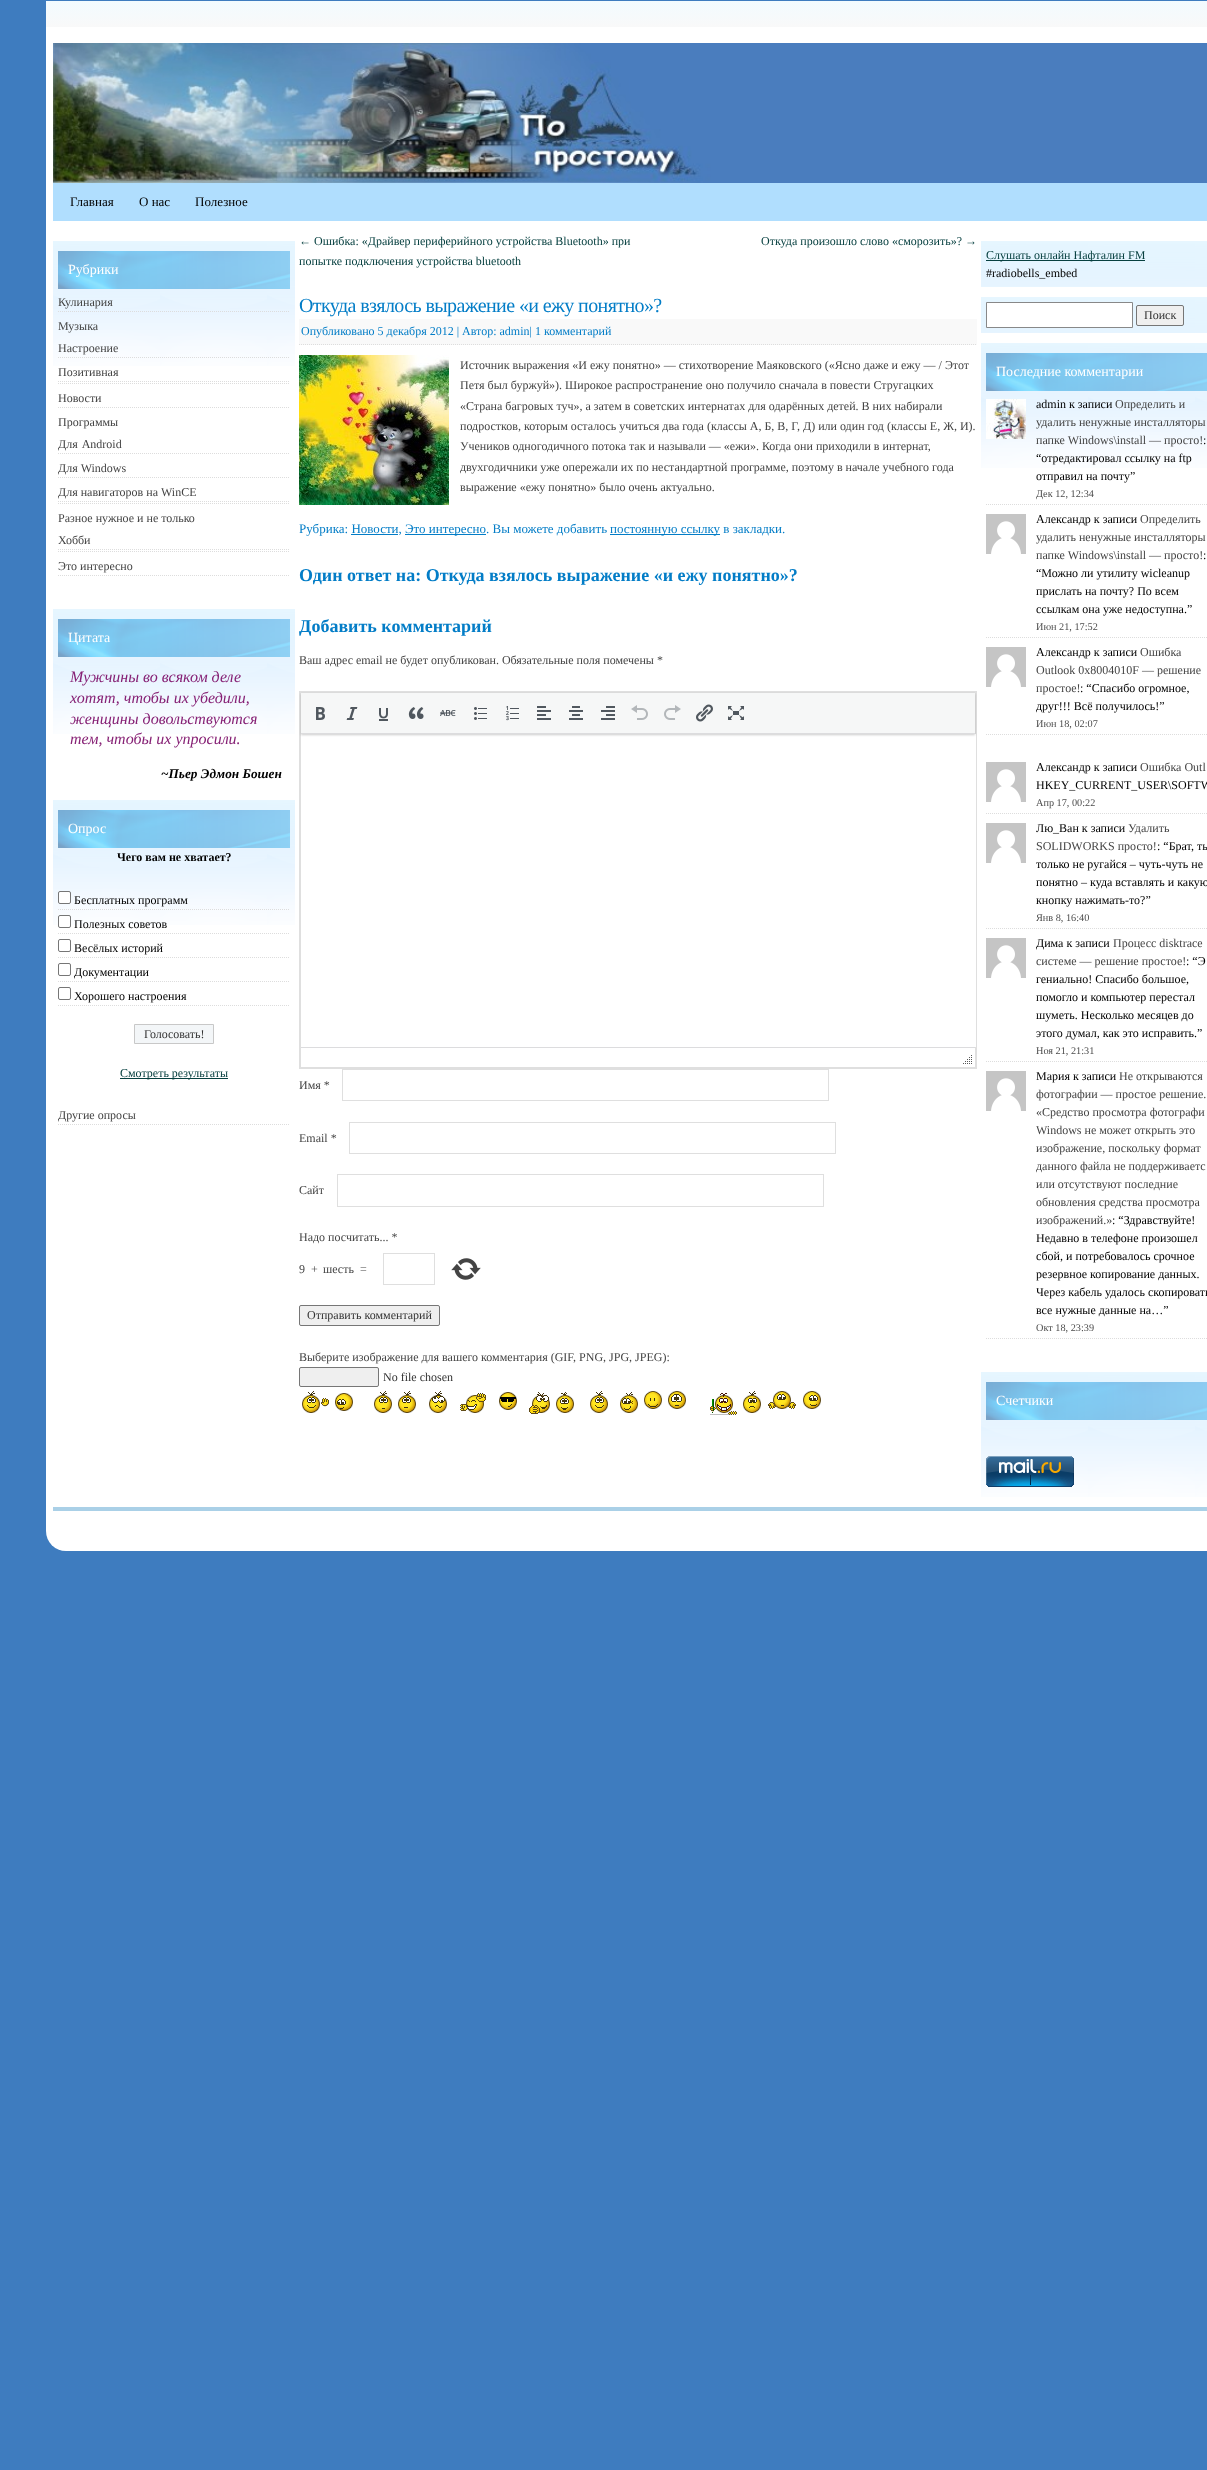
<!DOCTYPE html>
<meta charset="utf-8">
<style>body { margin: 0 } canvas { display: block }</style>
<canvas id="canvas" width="1207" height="2470"></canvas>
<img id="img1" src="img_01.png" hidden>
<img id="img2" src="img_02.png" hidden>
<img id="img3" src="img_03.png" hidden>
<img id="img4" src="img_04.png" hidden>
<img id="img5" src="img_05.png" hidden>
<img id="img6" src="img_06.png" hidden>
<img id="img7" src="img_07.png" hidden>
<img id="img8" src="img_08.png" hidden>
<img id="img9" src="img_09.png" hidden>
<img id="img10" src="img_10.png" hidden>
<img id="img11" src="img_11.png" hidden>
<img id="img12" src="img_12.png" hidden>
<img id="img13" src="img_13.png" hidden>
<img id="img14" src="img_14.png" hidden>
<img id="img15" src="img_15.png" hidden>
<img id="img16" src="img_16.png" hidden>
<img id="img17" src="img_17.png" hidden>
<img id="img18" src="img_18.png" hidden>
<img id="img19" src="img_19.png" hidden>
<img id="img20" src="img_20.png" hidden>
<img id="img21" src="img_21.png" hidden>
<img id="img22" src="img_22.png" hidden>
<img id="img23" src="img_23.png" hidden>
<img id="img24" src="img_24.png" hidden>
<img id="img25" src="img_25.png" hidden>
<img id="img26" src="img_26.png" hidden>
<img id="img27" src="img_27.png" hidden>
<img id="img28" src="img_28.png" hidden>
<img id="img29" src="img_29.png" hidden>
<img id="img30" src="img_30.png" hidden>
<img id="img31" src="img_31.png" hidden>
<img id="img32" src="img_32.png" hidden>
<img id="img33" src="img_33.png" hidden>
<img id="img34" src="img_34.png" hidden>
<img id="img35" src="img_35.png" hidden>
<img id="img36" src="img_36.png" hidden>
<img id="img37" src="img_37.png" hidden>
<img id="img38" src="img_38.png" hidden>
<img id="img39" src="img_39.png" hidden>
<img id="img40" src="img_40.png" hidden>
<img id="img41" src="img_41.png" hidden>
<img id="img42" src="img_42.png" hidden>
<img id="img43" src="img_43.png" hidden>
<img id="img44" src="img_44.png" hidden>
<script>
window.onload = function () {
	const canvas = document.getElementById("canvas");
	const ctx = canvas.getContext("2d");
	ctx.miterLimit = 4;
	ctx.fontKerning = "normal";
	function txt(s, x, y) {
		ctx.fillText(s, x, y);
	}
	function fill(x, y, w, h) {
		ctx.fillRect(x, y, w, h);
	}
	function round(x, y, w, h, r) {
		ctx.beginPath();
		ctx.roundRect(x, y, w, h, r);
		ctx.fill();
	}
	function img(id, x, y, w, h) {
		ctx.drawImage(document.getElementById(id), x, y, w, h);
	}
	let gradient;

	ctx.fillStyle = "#3E7CBF";
	fill(0, 0, 1207, 2470);
	ctx.fillStyle = "#FFFFFF";
	round(46, 1, 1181, 1550, 20);
	gradient = ctx.createLinearGradient(46, 1, 46, 27);
	gradient.addColorStop(0, "#F2FBFF");
	gradient.addColorStop(1, "#F9F9F9");
	ctx.fillStyle = gradient;
	fill(46, 1, 1161, 26);
	img("img1", 53, 43, 1154, 140);
	ctx.fillStyle = "#B0DEFE";
	fill(53, 183, 1154, 38);
	img("img2", 53, 241, 242, 125);
	fill(58, 251, 232, 38);
	img("img3", 58, 251, 232, 38);
	ctx.beginPath();
	ctx.moveTo(58, 311.5);
	ctx.lineTo(290, 311.5);
	ctx.strokeStyle = "#DDDDDD";
	ctx.setLineDash([1, 1]);
	ctx.stroke();
	ctx.beginPath();
	ctx.moveTo(58, 383.5);
	ctx.lineTo(290, 383.5);
	ctx.stroke();
	ctx.beginPath();
	ctx.moveTo(58, 357.5);
	ctx.lineTo(290, 357.5);
	ctx.stroke();
	ctx.beginPath();
	ctx.moveTo(58, 381.5);
	ctx.lineTo(290, 381.5);
	ctx.stroke();
	ctx.beginPath();
	ctx.moveTo(58, 407.5);
	ctx.lineTo(290, 407.5);
	ctx.stroke();
	ctx.beginPath();
	ctx.moveTo(58, 503.5);
	ctx.lineTo(290, 503.5);
	ctx.stroke();
	ctx.beginPath();
	ctx.moveTo(58, 453.5);
	ctx.lineTo(290, 453.5);
	ctx.stroke();
	ctx.beginPath();
	ctx.moveTo(58, 477.5);
	ctx.lineTo(290, 477.5);
	ctx.stroke();
	ctx.beginPath();
	ctx.moveTo(58, 501.5);
	ctx.lineTo(290, 501.5);
	ctx.stroke();
	ctx.beginPath();
	ctx.moveTo(58, 551.5);
	ctx.lineTo(290, 551.5);
	ctx.stroke();
	ctx.beginPath();
	ctx.moveTo(58, 549.5);
	ctx.lineTo(290, 549.5);
	ctx.stroke();
	ctx.beginPath();
	ctx.moveTo(58, 575.5);
	ctx.lineTo(290, 575.5);
	ctx.stroke();
	img("img2", 53, 609, 242, 125);
	fill(58, 619, 232, 38);
	img("img3", 58, 619, 232, 38);
	img("img2", 53, 800, 242, 125);
	fill(58, 810, 232, 38);
	img("img3", 58, 810, 232, 38);
	ctx.beginPath();
	ctx.moveTo(58, 909.5);
	ctx.lineTo(290, 909.5);
	ctx.stroke();
	ctx.fillStyle = "#FFFFFF";
	ctx.beginPath();
	ctx.roundRect(58.5, 891.5, 12, 12, 1.5);
	ctx.fill();
	ctx.strokeStyle = "#767676";
	ctx.setLineDash([]);
	ctx.stroke();
	ctx.beginPath();
	ctx.moveTo(58, 933.5);
	ctx.lineTo(290, 933.5);
	ctx.strokeStyle = "#DDDDDD";
	ctx.setLineDash([1, 1]);
	ctx.stroke();
	ctx.beginPath();
	ctx.roundRect(58.5, 915.5, 12, 12, 1.5);
	ctx.fill();
	ctx.strokeStyle = "#767676";
	ctx.setLineDash([]);
	ctx.stroke();
	ctx.beginPath();
	ctx.moveTo(58, 957.5);
	ctx.lineTo(290, 957.5);
	ctx.strokeStyle = "#DDDDDD";
	ctx.setLineDash([1, 1]);
	ctx.stroke();
	ctx.beginPath();
	ctx.roundRect(58.5, 939.5, 12, 12, 1.5);
	ctx.strokeStyle = "#767676";
	ctx.setLineDash([]);
	ctx.stroke();
	ctx.beginPath();
	ctx.moveTo(58, 981.5);
	ctx.lineTo(290, 981.5);
	ctx.strokeStyle = "#DDDDDD";
	ctx.setLineDash([1, 1]);
	ctx.stroke();
	ctx.beginPath();
	ctx.roundRect(58.5, 963.5, 12, 12, 1.5);
	ctx.strokeStyle = "#767676";
	ctx.setLineDash([]);
	ctx.stroke();
	ctx.beginPath();
	ctx.moveTo(58, 1005.5);
	ctx.lineTo(290, 1005.5);
	ctx.strokeStyle = "#DDDDDD";
	ctx.setLineDash([1, 1]);
	ctx.stroke();
	ctx.beginPath();
	ctx.roundRect(58.5, 987.5, 12, 12, 1.5);
	ctx.strokeStyle = "#767676";
	ctx.setLineDash([]);
	ctx.stroke();
	ctx.fillStyle = "#F3F6F8";
	ctx.beginPath();
	ctx.rect(134.5, 1024.5, 79, 19);
	ctx.fill();
	ctx.strokeStyle = "#C8C8C8";
	ctx.stroke();
	ctx.fillStyle = "#074040";
	fill(120, 1078, 108, 1);
	ctx.beginPath();
	ctx.moveTo(58, 1124.5);
	ctx.lineTo(290, 1124.5);
	ctx.strokeStyle = "#DDDDDD";
	ctx.setLineDash([1, 1]);
	ctx.stroke();
	ctx.fillStyle = "#F9F9F9";
	fill(299, 319, 678, 26);
	ctx.beginPath();
	ctx.moveTo(299, 344.5);
	ctx.lineTo(977, 344.5);
	ctx.stroke();
	img("img4", 299, 355, 150, 150);
	ctx.fillStyle = "#037DC7";
	fill(405, 534, 81, 1);
	fill(610, 534, 110, 1);
	fill(351, 534, 47, 1);
	ctx.strokeStyle = "#DFDFDF";
	ctx.lineWidth = 2;
	ctx.setLineDash([]);
	ctx.strokeRect(300, 692, 676, 376);
	ctx.fillStyle = "#FFFFFF";
	fill(975, 734, 1, 313);
	ctx.fillStyle = "rgba(0, 0, 0, 0.2)";
	ctx.filter = "blur(1px)";
	ctx.beginPath();
	ctx.rect(301, 694, 674, 41);
	ctx.fill();
	ctx.filter = "none";
	ctx.fillStyle = "#F6F7F7";
	fill(301, 693, 674, 40);
	ctx.fillStyle = "#DCDCDE";
	fill(301, 733, 674, 1);
	img("img5", 316, 707, 9, 13);
	img("img6", 346, 707, 12, 13);
	img("img7", 379, 708, 9, 13);
	img("img8", 408, 707, 16, 12);
	img("img9", 440, 710, 16, 7);
	img("img10", 474, 707, 13, 13);
	img("img11", 506, 706, 13, 15);
	img("img12", 537, 706, 14, 14);
	img("img13", 569, 706, 14, 14);
	img("img14", 601, 706, 14, 14);
	img("img15", 631, 705, 17, 15);
	img("img16", 664, 705, 17, 15);
	img("img17", 696, 704, 17, 18);
	img("img18", 728, 706, 16, 14);
	fill(301, 1047, 674, 1);
	img("img19", 963, 1055, 9, 9);
	ctx.lineWidth = 1;
	ctx.strokeRect(342.5, 1069.5, 486, 31);
	ctx.strokeRect(349.5, 1122.5, 486, 31);
	ctx.strokeRect(337.5, 1174.5, 486, 32);
	ctx.strokeRect(383.5, 1253.5, 51, 31);
	img("img20", 451, 1258, 30, 22);
	ctx.fillStyle = "#EFEFEF";
	ctx.beginPath();
	ctx.roundRect(299.5, 1305.5, 140, 20, 1.5);
	ctx.fill();
	ctx.strokeStyle = "#767676";
	ctx.stroke();
	ctx.beginPath();
	ctx.roundRect(299.5, 1367.5, 79, 19, 1.5);
	ctx.fill();
	ctx.stroke();
	img("img21", 302, 1391, 27, 22);
	img("img22", 335, 1393, 18, 18);
	img("img23", 374, 1391, 18, 22);
	img("img24", 398, 1391, 18, 22);
	img("img25", 429, 1391, 18, 22);
	img("img26", 460, 1393, 26, 20);
	img("img27", 499, 1392, 18, 18);
	img("img28", 529, 1392, 21, 22);
	img("img29", 556, 1392, 18, 21);
	img("img30", 590, 1391, 18, 22);
	img("img31", 620, 1392, 18, 21);
	img("img32", 644, 1391, 18, 18);
	img("img33", 668, 1391, 18, 18);
	img("img34", 710, 1393, 27, 22);
	img("img35", 743, 1391, 18, 22);
	img("img36", 768, 1391, 28, 18);
	img("img37", 803, 1391, 18, 18);
	img("img38", 981, 241, 226, 46);
	ctx.fillStyle = "#074040";
	fill(986, 260, 159, 1);
	img("img39", 981, 297, 226, 36);
	ctx.fillStyle = "#FFFFFF";
	ctx.beginPath();
	ctx.rect(986.5, 302.5, 146, 25);
	ctx.fill();
	ctx.strokeStyle = "#888888";
	ctx.stroke();
	ctx.fillStyle = "#EFEFEF";
	ctx.beginPath();
	ctx.roundRect(1136.5, 305.5, 47, 20, 1.5);
	ctx.fill();
	ctx.strokeStyle = "#767676";
	ctx.stroke();
	img("img40", 981, 343, 226, 125);
	ctx.fillStyle = "#B0DEFE";
	fill(986, 353, 221, 38);
	img("img41", 986, 353, 221, 38);
	ctx.beginPath();
	ctx.moveTo(986, 504.5);
	ctx.lineTo(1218, 504.5);
	ctx.strokeStyle = "#DDDDDD";
	ctx.setLineDash([1, 1]);
	ctx.stroke();
	img("img42", 986, 399, 40, 40);
	ctx.beginPath();
	ctx.moveTo(986, 637.5);
	ctx.lineTo(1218, 637.5);
	ctx.stroke();
	img("img43", 986, 514, 40, 40);
	ctx.beginPath();
	ctx.moveTo(986, 734.5);
	ctx.lineTo(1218, 734.5);
	ctx.stroke();
	img("img43", 986, 647, 40, 40);
	ctx.beginPath();
	ctx.moveTo(986, 813.5);
	ctx.lineTo(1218, 813.5);
	ctx.stroke();
	img("img43", 986, 762, 40, 40);
	ctx.beginPath();
	ctx.moveTo(986, 928.5);
	ctx.lineTo(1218, 928.5);
	ctx.stroke();
	img("img43", 986, 823, 40, 40);
	ctx.beginPath();
	ctx.moveTo(986, 1061.5);
	ctx.lineTo(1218, 1061.5);
	ctx.stroke();
	img("img43", 986, 938, 40, 40);
	ctx.beginPath();
	ctx.moveTo(986, 1338.5);
	ctx.lineTo(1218, 1338.5);
	ctx.stroke();
	img("img43", 986, 1071, 40, 40);
	img("img40", 981, 1372, 226, 125);
	fill(986, 1382, 221, 38);
	img("img41", 986, 1382, 221, 38);
	img("img44", 986, 1456, 88, 31);
	ctx.fillStyle = "#AAD0E7";
	fill(53, 1507, 1154, 4);
	ctx.font = "13px Liberation Serif";
	ctx.fillStyle = "#000000";
	txt("Главная", 70, 206);
	txt("О нас", 139, 206);
	txt("Полезное", 195, 206);
	ctx.font = "14px Liberation Serif";
	ctx.fillStyle = "#FFFFFF";
	txt("Рубрики", 68, 274);
	ctx.font = "12px Liberation Serif";
	ctx.fillStyle = "#444444";
	txt("Кулинария", 58, 306);
	txt("Музыка", 58, 330);
	txt("Настроение", 58, 352);
	txt("Позитивная", 58, 376);
	txt("Новости", 58, 402);
	txt("Программы", 58, 426);
	ctx.wordSpacing = "1px";
	txt("Для Android", 58, 448);
	ctx.wordSpacing = "0px";
	txt("Для Windows", 58, 472);
	txt("Для навигаторов на WinCE", 58, 496);
	txt("Разное нужное и не только", 58, 522);
	txt("Хобби", 58, 544);
	txt("Это интересно", 58, 570);
	ctx.font = "14px Liberation Serif";
	ctx.fillStyle = "#FFFFFF";
	txt("Цитата", 68, 642);
	ctx.font = "italic 16px Liberation Serif";
	ctx.fillStyle = "#862175";
	txt("Мужчины во всяком деле", 70, 682);
	txt("хотят, чтобы их убедили,", 70, 703);
	txt("женщины довольствуются", 70, 724);
	txt("тем, чтобы их упросили.", 70, 744);
	ctx.font = "italic bold 13.25px Liberation Serif";
	ctx.fillStyle = "#000000";
	txt("~Пьер Эдмон Бошен", 161, 778);
	ctx.font = "14px Liberation Serif";
	ctx.fillStyle = "#FFFFFF";
	txt("Опрос", 68, 833);
	ctx.font = "bold 12px Liberation Serif";
	ctx.fillStyle = "#000000";
	txt("Чего вам не хватает?", 117, 861);
	ctx.font = "12px Liberation Serif";
	txt("Бесплатных программ", 74, 904);
	txt("Полезных советов", 74, 928);
	txt("Весёлых историй", 74, 952);
	txt("Документации", 74, 976);
	txt("Хорошего настроения", 74, 1000);
	ctx.fillStyle = "#333333";
	txt("Голосовать!", 144, 1038);
	ctx.fillStyle = "#074040";
	txt("Смотреть результаты", 120, 1077);
	ctx.fillStyle = "#444444";
	txt("Другие опросы", 58, 1119);
	ctx.fillStyle = "#074040";
	txt("← Ошибка: «Драйвер периферийного устройства Bluetooth» при", 299, 245);
	txt("попытке подключения устройства bluetooth", 299, 265);
	txt("Откуда произошло слово «сморозить»? →", 761, 245);
	ctx.letterSpacing = "-0.6px";
	ctx.font = "20px Liberation Serif";
	ctx.fillStyle = "#037DC7";
	txt("Откуда взялось выражение «и ежу понятно»?", 299, 312);
	ctx.letterSpacing = "0px";
	ctx.font = "12px Liberation Serif";
	txt("Опубликовано 5 декабря 2012 | Автор: admin| 1 комментарий", 301, 335);
	ctx.fillStyle = "#444444";
	txt("Источник выражения «И ежу понятно» — стихотворение Маяковского («Ясно даже и ежу — / Этот", 460, 369);
	txt("Петя был буржуй»). Широкое распространение оно получило сначала в повести Стругацких", 460, 389);
	txt("«Страна багровых туч», а затем в советских интернатах для одарённых детей. В них набирали", 460, 410);
	txt("подростков, которым осталось учиться два года (классы А, Б, В, Г, Д) или один год (классы Е, Ж, И).", 460, 430);
	txt("Учеников одногодичного потока так и называли — «ежи». Когда они приходили в интернат,", 460, 450);
	txt("двухгодичники уже опережали их по нестандартной программе, поэтому в начале учебного года", 460, 471);
	txt("выражение «ежу понятно» было очень актуально.", 460, 491);
	ctx.font = "13px Liberation Serif";
	ctx.fillStyle = "#037DC7";
	txt("Рубрика: Новости,", 299, 533);
	txt("Это интересно. Вы можете добавить", 405, 533);
	txt("постоянную ссылку в закладки.", 610, 533);
	ctx.font = "bold 18px Liberation Serif";
	txt("Один ответ на: Откуда взялось выражение «и ежу понятно»?", 299, 581);
	txt("Добавить комментарий", 299, 632);
	ctx.font = "12px Liberation Serif";
	ctx.fillStyle = "#444444";
	txt("Ваш адрес email не будет опубликован. Обязательные поля помечены *", 299, 664);
	txt("Имя *", 299, 1089);
	txt("Email *", 299, 1142);
	txt("Сайт", 299, 1194);
	txt("Надо посчитать... *", 299, 1241);
	txt("9", 299, 1273);
	txt("+", 311, 1273);
	txt("шесть", 323, 1273);
	txt("=", 360, 1273);
	ctx.fillStyle = "#333333";
	txt("Отправить комментарий", 307, 1319);
	ctx.fillStyle = "#444444";
	txt("Выберите изображение для вашего комментария (GIF, PNG, JPG, JPEG):", 299, 1361);
	ctx.fillStyle = "#333333";
	txt("No file chosen", 383, 1381);
	ctx.fillStyle = "#074040";
	txt("Слушать онлайн Нафталин FM", 986, 259);
	ctx.fillStyle = "#000000";
	txt("#radiobells_embed", 986, 277);
	ctx.fillStyle = "#333333";
	txt("Поиск", 1144, 319);
	ctx.font = "14px Liberation Serif";
	ctx.fillStyle = "#FFFFFF";
	txt("Последние комментарии", 996, 376);
	ctx.font = "12px Liberation Serif";
	ctx.fillStyle = "#000000";
	txt("admin к записи", 1036, 408);
	ctx.fillStyle = "#444444";
	txt("Определить и", 1115, 408);
	txt("удалить ненужные инсталляторы", 1036, 426);
	txt("папке Windows\\install — просто!", 1036, 444);
	ctx.fillStyle = "#000000";
	txt(":", 1203, 444);
	txt("“отредактировал ссылку на ftp", 1036, 462);
	txt("отправил на почту”", 1036, 480);
	ctx.font = "10.25px Liberation Serif";
	ctx.fillStyle = "#4D4D4D";
	txt("Дек 12, 12:34", 1036, 497);
	ctx.font = "12px Liberation Serif";
	ctx.fillStyle = "#000000";
	txt("Александр к записи", 1036, 523);
	ctx.fillStyle = "#444444";
	txt("Определить", 1140, 523);
	txt("удалить ненужные инсталляторы", 1036, 541);
	txt("папке Windows\\install — просто!", 1036, 559);
	ctx.fillStyle = "#000000";
	txt(":", 1203, 559);
	txt("“Можно ли утилиту wicleanup", 1036, 577);
	txt("прислать на почту? По всем", 1036, 595);
	txt("ссылкам она уже недоступна.”", 1036, 613);
	ctx.font = "10.25px Liberation Serif";
	ctx.fillStyle = "#4D4D4D";
	txt("Июн 21, 17:52", 1036, 630);
	ctx.font = "12px Liberation Serif";
	ctx.fillStyle = "#000000";
	txt("Александр к записи", 1036, 656);
	ctx.fillStyle = "#444444";
	txt("Ошибка", 1140, 656);
	txt("Outlook 0x8004010F — решение", 1036, 674);
	txt("простое!", 1036, 692);
	ctx.fillStyle = "#000000";
	txt(": “Спасибо огромное,", 1080, 692);
	txt("друг!!! Всё получилось!”", 1036, 710);
	ctx.font = "10.25px Liberation Serif";
	ctx.fillStyle = "#4D4D4D";
	txt("Июн 18, 02:07", 1036, 727);
	ctx.font = "12px Liberation Serif";
	ctx.fillStyle = "#000000";
	txt("Александр к записи", 1036, 771);
	ctx.fillStyle = "#444444";
	txt("Ошибка Outl", 1140, 771);
	ctx.fillStyle = "#000000";
	txt("HKEY_CURRENT_USER\\SOFTW", 1036, 789);
	ctx.font = "10.25px Liberation Serif";
	ctx.fillStyle = "#4D4D4D";
	txt("Апр 17, 00:22", 1036, 806);
	ctx.font = "12px Liberation Serif";
	ctx.fillStyle = "#000000";
	txt("Лю_Ван к записи", 1036, 832);
	ctx.fillStyle = "#444444";
	txt("Удалить", 1128, 832);
	txt("SOLIDWORKS просто!", 1036, 850);
	ctx.fillStyle = "#000000";
	txt(": “Брат, ты", 1157, 850);
	txt("только не ругайся – чуть-чуть не", 1036, 868);
	txt("понятно – куда вставлять и какую", 1036, 886);
	txt("кнопку нажимать-то?”", 1036, 904);
	ctx.font = "10.25px Liberation Serif";
	ctx.fillStyle = "#4D4D4D";
	txt("Янв 8, 16:40", 1036, 921);
	ctx.font = "12px Liberation Serif";
	ctx.fillStyle = "#000000";
	txt("Дима к записи", 1036, 947);
	ctx.fillStyle = "#444444";
	txt("Процесс disktrace", 1113, 947);
	txt("системе — решение простое!", 1036, 965);
	ctx.fillStyle = "#000000";
	txt(": “Э", 1186, 965);
	txt("гениально! Спасибо большое,", 1036, 983);
	txt("помогло и компьютер перестал", 1036, 1001);
	txt("шуметь. Несколько месяцев до", 1036, 1019);
	txt("этого думал, как это исправить.”", 1036, 1037);
	ctx.font = "10.25px Liberation Serif";
	ctx.fillStyle = "#4D4D4D";
	txt("Ноя 21, 21:31", 1036, 1054);
	ctx.font = "12px Liberation Serif";
	ctx.fillStyle = "#000000";
	txt("Мария к записи", 1036, 1080);
	ctx.fillStyle = "#444444";
	txt("Не открываются", 1119, 1080);
	txt("фотографии — простое решение.", 1036, 1098);
	txt("«Средство просмотра фотографи", 1036, 1116);
	txt("Windows не может открыть это", 1036, 1134);
	txt("изображение, поскольку формат", 1036, 1152);
	txt("данного файла не поддерживаетс", 1036, 1170);
	txt("или отсутствуют последние", 1036, 1188);
	txt("обновления средства просмотра", 1036, 1206);
	txt("изображений.»", 1036, 1224);
	ctx.fillStyle = "#000000";
	txt(": “Здравствуйте!", 1112, 1224);
	txt("Недавно в телефоне произошел", 1036, 1242);
	txt("сбой, и потребовалось срочное", 1036, 1260);
	txt("резервное копирование данных.", 1036, 1278);
	txt("Через кабель удалось скопировать", 1036, 1296);
	txt("все нужные данные на…”", 1036, 1314);
	ctx.font = "10.25px Liberation Serif";
	ctx.fillStyle = "#4D4D4D";
	txt("Окт 18, 23:39", 1036, 1331);
	ctx.font = "14px Liberation Serif";
	ctx.fillStyle = "#FFFFFF";
	txt("Счетчики", 996, 1405);
};
</script>
